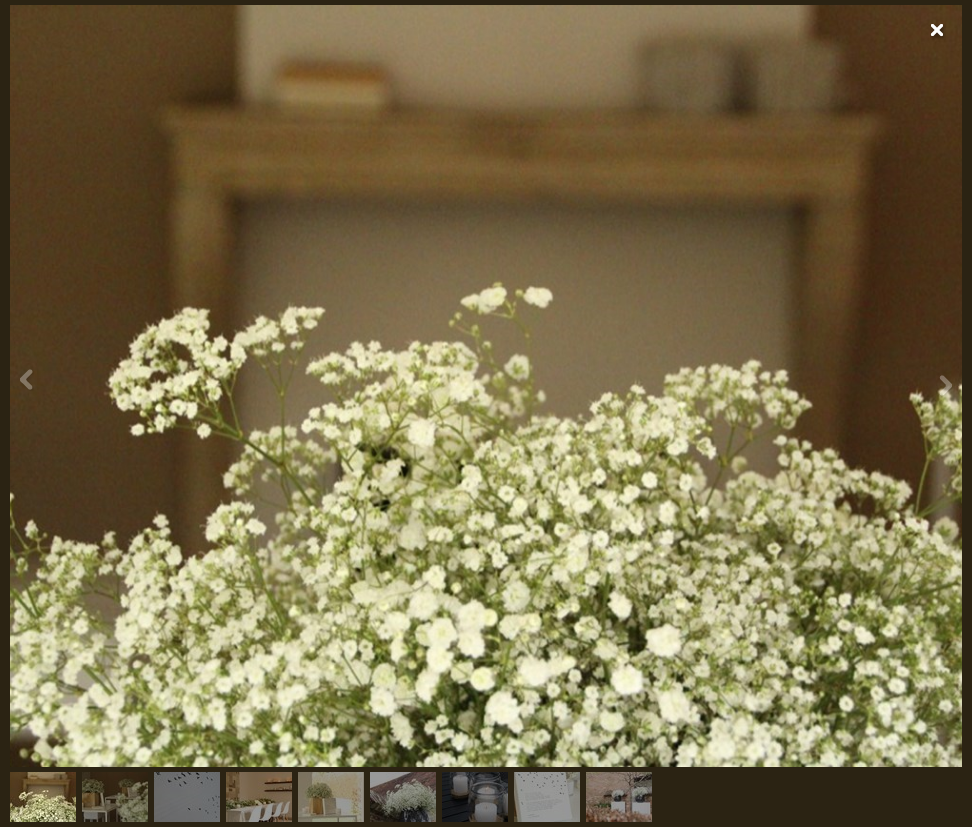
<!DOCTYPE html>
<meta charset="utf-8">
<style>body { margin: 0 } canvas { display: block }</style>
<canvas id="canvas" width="972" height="827"></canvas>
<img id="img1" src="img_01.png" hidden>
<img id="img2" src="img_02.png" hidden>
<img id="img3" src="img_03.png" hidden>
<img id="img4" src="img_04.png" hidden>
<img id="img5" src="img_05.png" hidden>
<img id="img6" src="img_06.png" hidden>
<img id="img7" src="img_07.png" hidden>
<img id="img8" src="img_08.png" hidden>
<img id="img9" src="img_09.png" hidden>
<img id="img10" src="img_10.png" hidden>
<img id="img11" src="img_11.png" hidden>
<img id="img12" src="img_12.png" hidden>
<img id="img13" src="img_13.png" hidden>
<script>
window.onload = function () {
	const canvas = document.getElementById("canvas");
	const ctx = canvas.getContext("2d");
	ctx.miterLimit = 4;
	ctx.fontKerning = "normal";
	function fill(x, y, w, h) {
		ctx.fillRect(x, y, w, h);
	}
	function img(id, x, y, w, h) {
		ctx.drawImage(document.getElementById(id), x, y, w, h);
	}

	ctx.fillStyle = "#2B2313";
	fill(0, 0, 972, 827);
	img("img1", 10, 5, 952, 762);
	img("img2", 20, 369, 14, 22);
	img("img3", 939, 375, 13, 23);
	img("img4", 10, 772, 66, 50);
	ctx.fillStyle = "#000000";
	fill(82, 772, 66, 50);
	img("img5", 82, 772, 66, 50);
	fill(154, 772, 66, 50);
	img("img6", 154, 772, 66, 50);
	fill(226, 772, 66, 50);
	img("img7", 226, 772, 66, 50);
	fill(298, 772, 66, 50);
	img("img8", 298, 772, 66, 50);
	fill(370, 772, 66, 50);
	img("img9", 370, 772, 66, 50);
	fill(442, 772, 66, 50);
	img("img10", 442, 772, 66, 50);
	fill(514, 772, 66, 50);
	img("img11", 514, 772, 66, 50);
	fill(586, 772, 66, 50);
	img("img12", 586, 772, 66, 50);
	img("img13", 930, 24, 16, 16);
};
</script>
